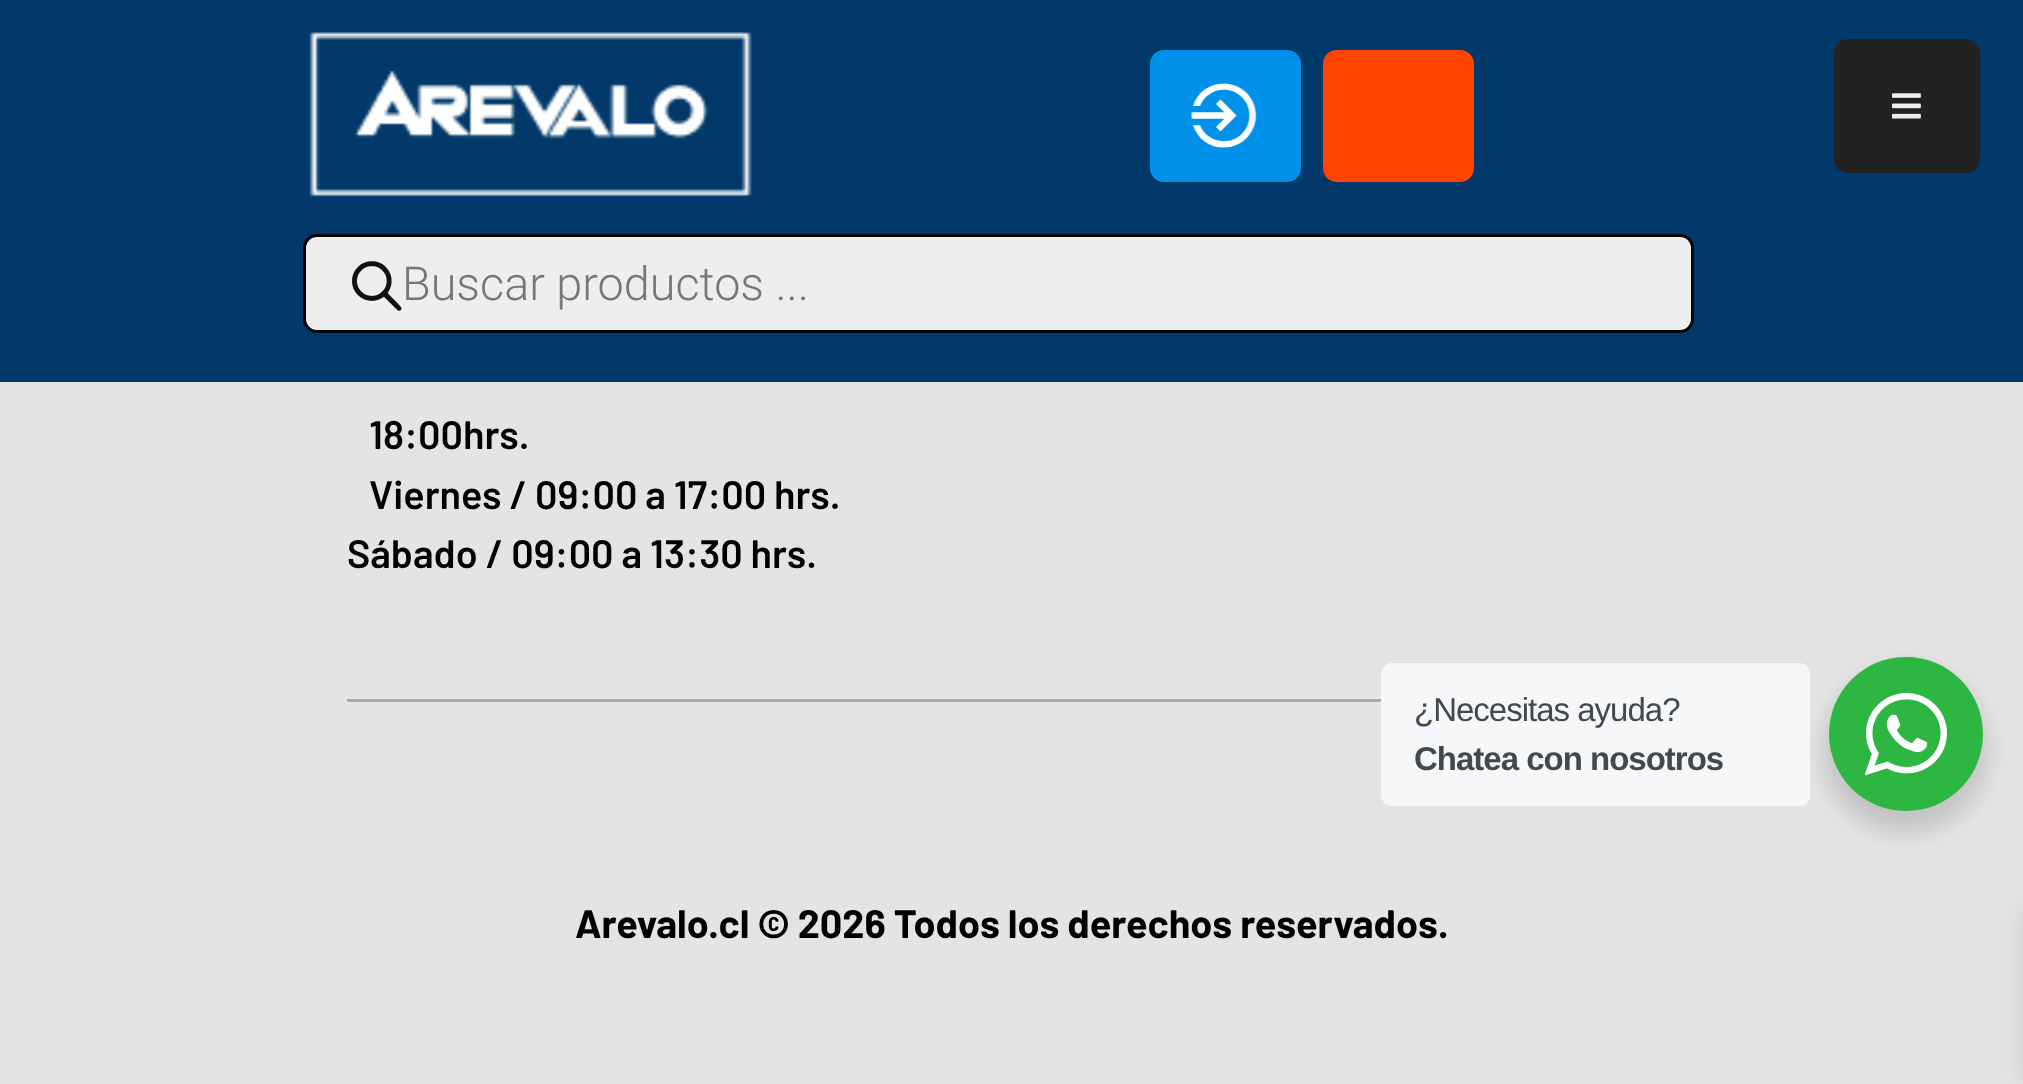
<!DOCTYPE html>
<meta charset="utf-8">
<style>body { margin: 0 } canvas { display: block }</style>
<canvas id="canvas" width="2023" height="1084"></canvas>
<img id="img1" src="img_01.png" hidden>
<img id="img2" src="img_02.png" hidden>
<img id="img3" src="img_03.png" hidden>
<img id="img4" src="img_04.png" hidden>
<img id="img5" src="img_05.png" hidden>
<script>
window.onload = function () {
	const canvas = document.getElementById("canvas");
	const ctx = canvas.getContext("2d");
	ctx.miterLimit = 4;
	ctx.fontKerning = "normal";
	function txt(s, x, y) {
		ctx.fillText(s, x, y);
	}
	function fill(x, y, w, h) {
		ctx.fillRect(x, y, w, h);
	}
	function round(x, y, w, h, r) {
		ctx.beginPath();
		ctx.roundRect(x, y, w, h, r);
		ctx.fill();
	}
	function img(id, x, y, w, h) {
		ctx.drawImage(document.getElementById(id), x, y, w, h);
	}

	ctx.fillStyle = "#E4E4E4";
	fill(0, 0, 2023, 1084);
	ctx.fillStyle = "#00396A";
	fill(0, 0, 2023, 382);
	img("img1", 309, 32, 443, 165);
	ctx.fillStyle = "#0091EB";
	round(1150, 50, 151, 132, 14);
	img("img2", 1191, 83, 66, 65);
	ctx.fillStyle = "#FF4400";
	round(1323, 50, 151, 132, 14);
	ctx.fillStyle = "#222222";
	round(1834, 39, 146, 134, 14);
	img("img3", 1892, 93, 29, 26);
	ctx.fillStyle = "#EEEEEE";
	ctx.beginPath();
	ctx.roundRect(304.5, 235.5, 1388, 96, 12.5);
	ctx.fill();
	ctx.strokeStyle = "#000000";
	ctx.lineWidth = 3;
	ctx.stroke();
	img("img4", 352, 261, 50, 50);
	ctx.fillStyle = "#ABABAB";
	fill(347, 699, 1034, 3);
	ctx.fillStyle = "rgba(0, 0, 0, 0.14)";
	ctx.filter = "blur(11px)";
	ctx.beginPath();
	ctx.roundRect(1823, 668, 165, 165, 82.5);
	ctx.fill();
	ctx.filter = "none";
	ctx.fillStyle = "#F5F7F9";
	round(1381, 663, 429, 143, 11);
	ctx.fillStyle = "#2DB742";
	ctx.beginPath();
	ctx.arc(1906, 734, 77, 0, Math.PI * 2);
	ctx.fill();
	img("img5", 1865, 693, 82, 83);
	ctx.fillStyle = "rgba(0, 0, 0, 0.1)";
	ctx.filter = "blur(14px)";
	ctx.beginPath();
	ctx.rect(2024, 910, 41, 174);
	ctx.fill();
	ctx.filter = "none";
	ctx.font = "300 46.75px Roboto";
	ctx.fillStyle = "#777777";
	txt("Buscar productos ...", 402, 300);
	ctx.font = "600 39.6px Barlow";
	ctx.fillStyle = "#000000";
	txt("18:00hrs.", 369, 449);
	txt("Viernes / 09:00 a 17:00 hrs.", 369, 509);
	txt("Sábado / 09:00 a 13:30 hrs.", 347, 568);
	ctx.font = "bold 39.6px Barlow";
	txt("Arevalo.cl © 2026 Todos los derechos reservados.", 575, 938);
	ctx.letterSpacing = "-1px";
	ctx.font = "33px Liberation Sans";
	ctx.fillStyle = "#43474E";
	txt("¿Necesitas ayuda?", 1414, 721);
	ctx.font = "bold 33px Liberation Sans";
	txt("Chatea con nosotros", 1414, 770);
};
</script>
